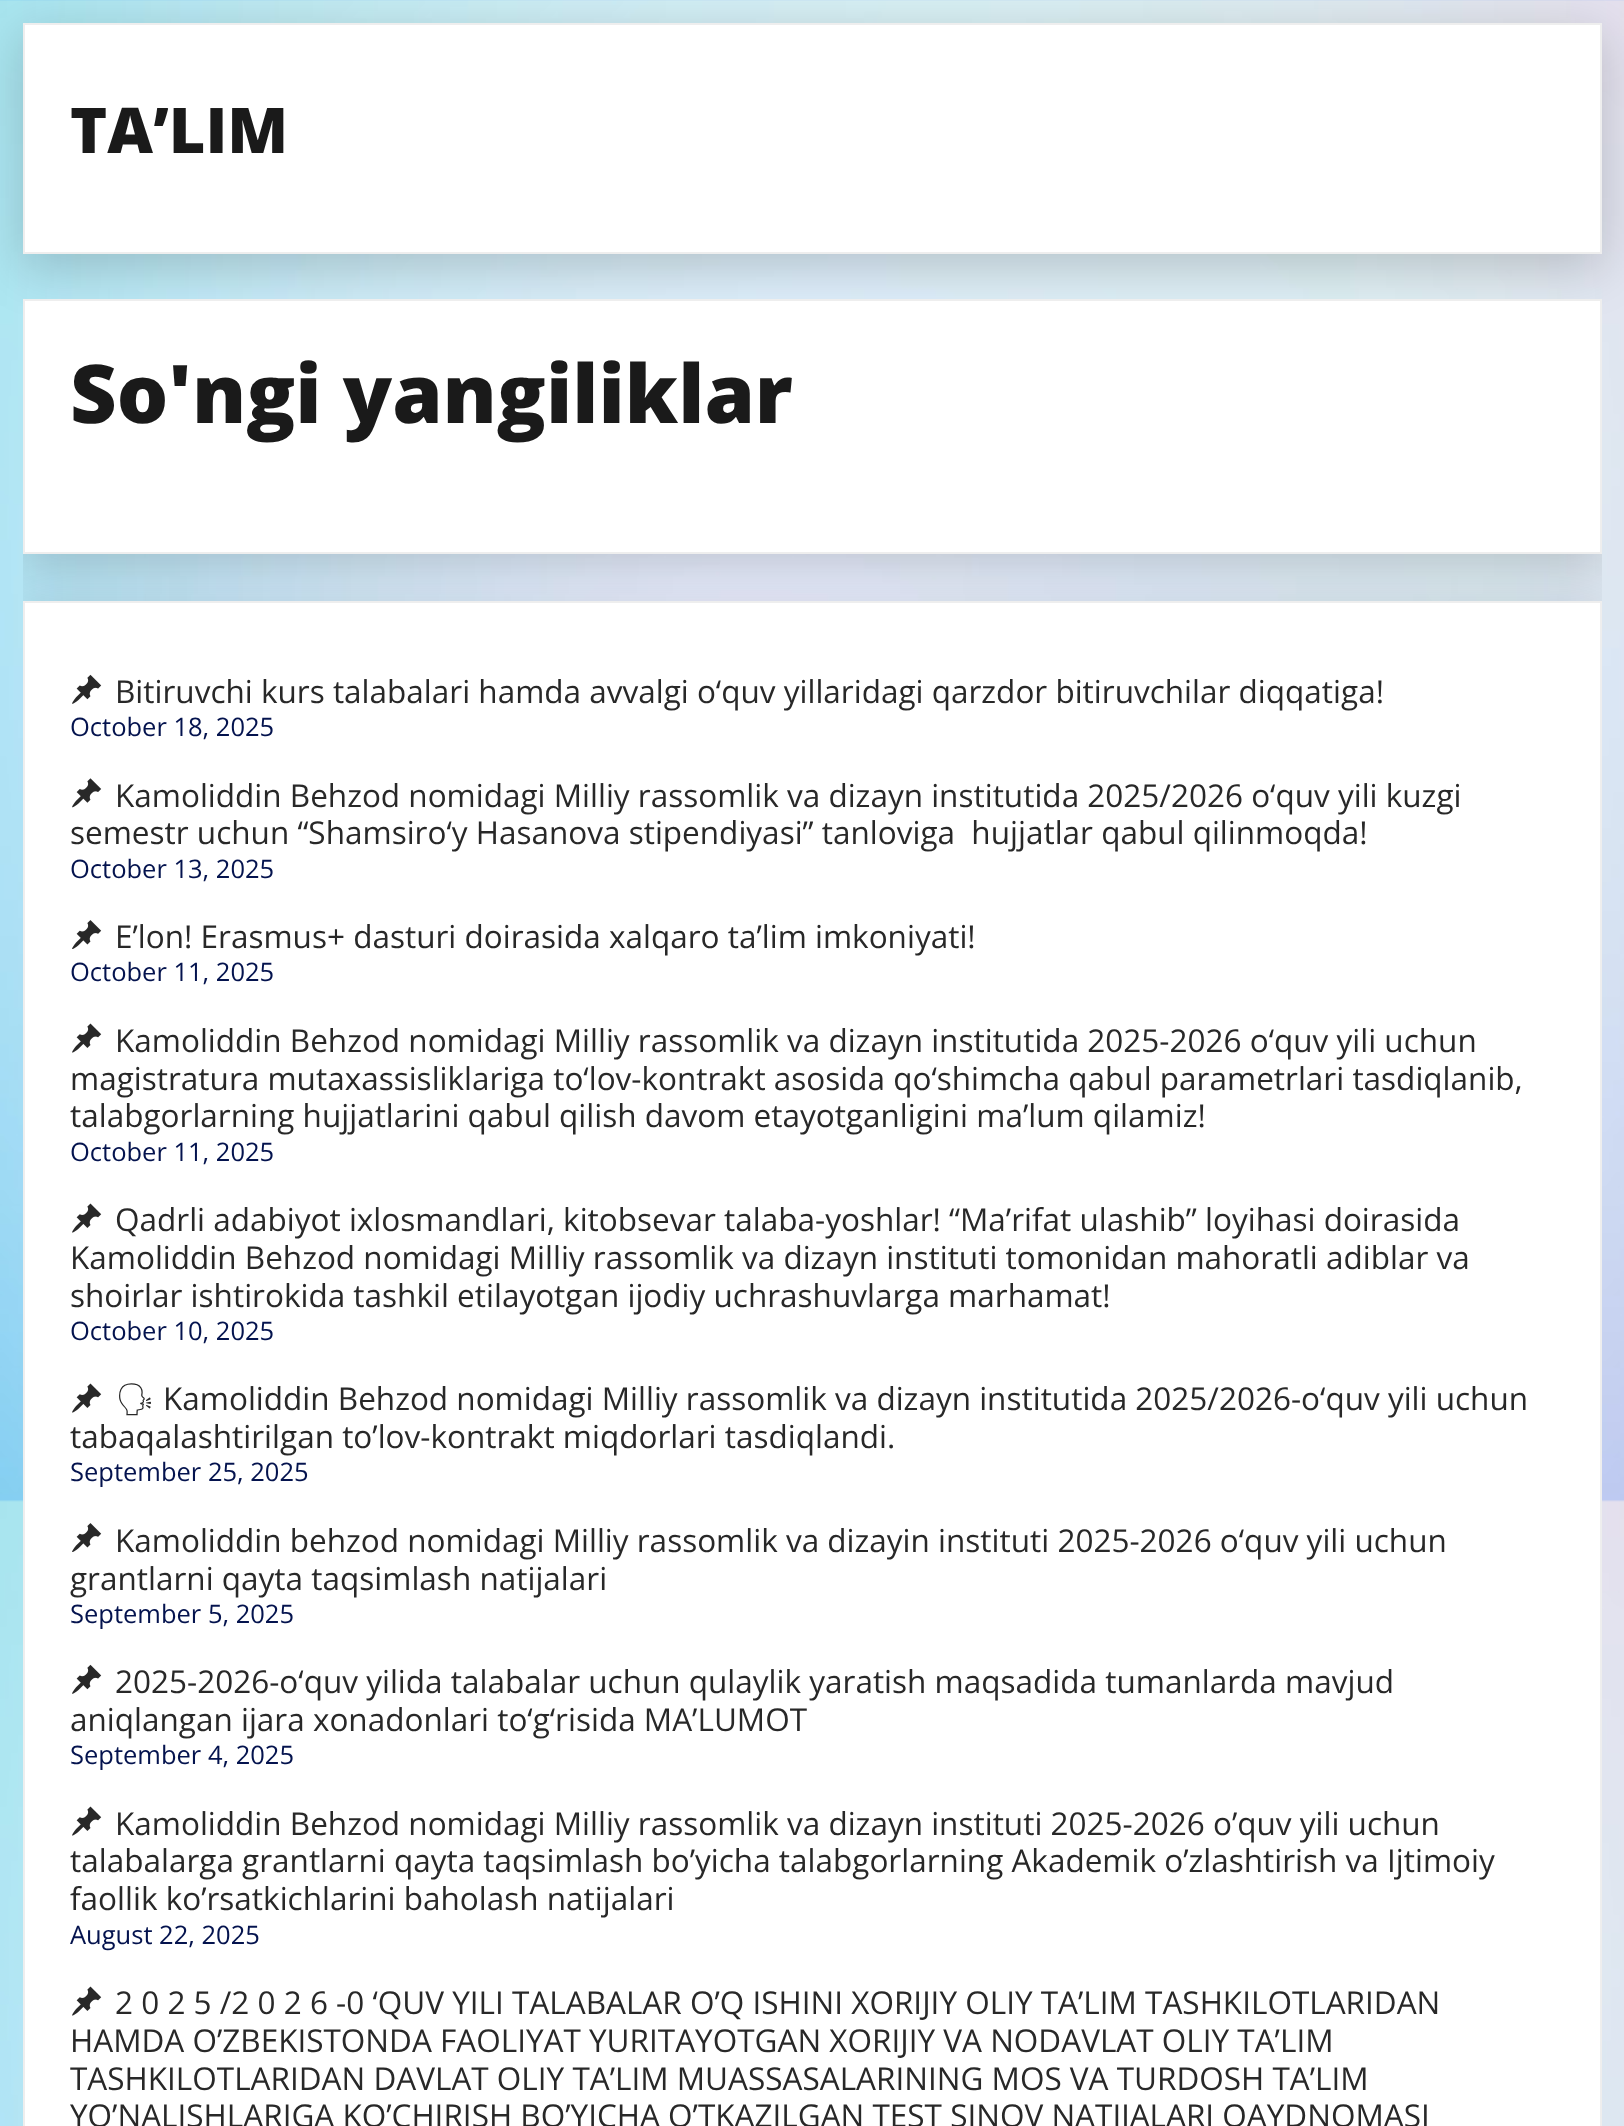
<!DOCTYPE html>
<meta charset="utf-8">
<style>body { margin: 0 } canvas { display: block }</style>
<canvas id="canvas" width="1624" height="2126"></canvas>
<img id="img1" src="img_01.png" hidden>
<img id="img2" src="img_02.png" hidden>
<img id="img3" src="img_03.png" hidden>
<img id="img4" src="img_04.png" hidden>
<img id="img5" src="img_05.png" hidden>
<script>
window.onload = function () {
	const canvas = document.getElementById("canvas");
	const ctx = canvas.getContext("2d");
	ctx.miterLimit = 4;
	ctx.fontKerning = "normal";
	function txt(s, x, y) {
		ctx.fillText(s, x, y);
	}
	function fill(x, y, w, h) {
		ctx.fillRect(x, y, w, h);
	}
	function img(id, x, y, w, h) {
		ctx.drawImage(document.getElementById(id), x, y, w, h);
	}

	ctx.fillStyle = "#FFFFFF";
	fill(0, 0, 1624, 2126);
	img("img1", 0, 0, 1624, 2126);
	ctx.fillStyle = "rgba(0, 0, 0, 0.18)";
	ctx.filter = "blur(25px)";
	ctx.beginPath();
	ctx.rect(23, 36, 1579, 232);
	ctx.fill();
	ctx.filter = "none";
	ctx.fillStyle = "#FFFFFF";
	ctx.beginPath();
	ctx.rect(24, 24, 1577, 229);
	ctx.fill();
	ctx.strokeStyle = "#EEEEEE";
	ctx.lineWidth = 2;
	ctx.stroke();
	ctx.save();
	ctx.beginPath();
	ctx.rect(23, 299, 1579, 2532);
	ctx.clip();
	ctx.fillStyle = "rgba(0, 0, 0, 0.18)";
	ctx.filter = "blur(25px)";
	ctx.beginPath();
	ctx.rect(23, 313, 1579, 254);
	ctx.fill();
	ctx.filter = "none";
	ctx.restore();
	ctx.beginPath();
	ctx.rect(24, 300, 1577, 253);
	ctx.fill();
	ctx.stroke();
	ctx.save();
	ctx.beginPath();
	ctx.rect(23, 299, 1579, 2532);
	ctx.clip();
	ctx.fillStyle = "rgba(0, 0, 0, 0.18)";
	ctx.filter = "blur(25px)";
	ctx.beginPath();
	ctx.rect(23, 614, 1579, 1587);
	ctx.fill();
	ctx.filter = "none";
	ctx.restore();
	ctx.beginPath();
	ctx.rect(24, 602, 1577, 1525);
	ctx.fill();
	ctx.stroke();
	img("img2", 72, 674, 30, 30);
	img("img3", 72, 778, 30, 30);
	img("img4", 72, 920, 30, 29);
	img("img5", 72, 1023, 30, 30);
	img("img5", 72, 1203, 30, 30);
	img("img5", 72, 1383, 30, 30);
	img("img4", 72, 1523, 30, 29);
	img("img2", 72, 1664, 30, 30);
	img("img5", 72, 1806, 30, 30);
	img("img5", 72, 1986, 30, 30);
	ctx.font = "800 63px Open Sans";
	ctx.fillStyle = "#1A1A1A";
	txt("TA’LIM", 70, 153);
	ctx.font = "800 81px Open Sans";
	txt("So'ngi yangiliklar", 70, 423);
	ctx.font = "31.5px Open Sans";
	ctx.fillStyle = "#282828";
	txt("Bitiruvchi kurs talabalari hamda avvalgi o‘quv yillaridagi qarzdor bitiruvchilar diqqatiga!", 115, 703);
	ctx.font = "25.5px Open Sans";
	ctx.fillStyle = "#04134E";
	txt("October 18, 2025", 70, 736);
	ctx.font = "31.5px Open Sans";
	ctx.fillStyle = "#282828";
	txt("Kamoliddin Behzod nomidagi Milliy rassomlik va dizayn institutida 2025/2026 o‘quv yili kuzgi", 115, 807);
	txt("semestr uchun “Shamsiro‘y Hasanova stipendiyasi” tanloviga  hujjatlar qabul qilinmoqda!", 70, 844);
	ctx.font = "25.5px Open Sans";
	ctx.fillStyle = "#04134E";
	txt("October 13, 2025", 70, 878);
	ctx.font = "31.5px Open Sans";
	ctx.fillStyle = "#282828";
	txt("E’lon! Erasmus+ dasturi doirasida xalqaro ta’lim imkoniyati!", 115, 948);
	ctx.font = "25.5px Open Sans";
	ctx.fillStyle = "#04134E";
	txt("October 11, 2025", 70, 981);
	ctx.font = "31.5px Open Sans";
	ctx.fillStyle = "#282828";
	txt("Kamoliddin Behzod nomidagi Milliy rassomlik va dizayn institutida 2025-2026 o‘quv yili uchun", 115, 1052);
	txt("magistratura mutaxassisliklariga to‘lov-kontrakt asosida qo‘shimcha qabul parametrlari tasdiqlanib,", 70, 1090);
	txt("talabgorlarning hujjatlarini qabul qilish davom etayotganligini ma’lum qilamiz!", 70, 1127);
	ctx.font = "25.5px Open Sans";
	ctx.fillStyle = "#04134E";
	txt("October 11, 2025", 70, 1161);
	ctx.font = "31.5px Open Sans";
	ctx.fillStyle = "#282828";
	txt("Qadrli adabiyot ixlosmandlari, kitobsevar talaba-yoshlar! “Ma’rifat ulashib” loyihasi doirasida", 115, 1231);
	txt("Kamoliddin Behzod nomidagi Milliy rassomlik va dizayn instituti tomonidan mahoratli adiblar va", 70, 1269);
	txt("shoirlar ishtirokida tashkil etilayotgan ijodiy uchrashuvlarga marhamat!", 70, 1307);
	ctx.font = "25.5px Open Sans";
	ctx.fillStyle = "#04134E";
	txt("October 10, 2025", 70, 1340);
	ctx.font = "31.5px Noto Emoji";
	ctx.fillStyle = "#282828";
	txt("🗣", 115, 1410);
	ctx.font = "31.5px Open Sans";
	txt("Kamoliddin Behzod nomidagi Milliy rassomlik va dizayn institutida 2025/2026-o‘quv yili uchun", 163, 1410);
	txt("tabaqalashtirilgan to’lov-kontrakt miqdorlari tasdiqlandi.", 70, 1448);
	ctx.font = "25.5px Open Sans";
	ctx.fillStyle = "#04134E";
	txt("September 25, 2025", 70, 1481);
	ctx.font = "31.5px Open Sans";
	ctx.fillStyle = "#282828";
	txt("Kamoliddin behzod nomidagi Milliy rassomlik va dizayin instituti 2025-2026 o‘quv yili uchun", 115, 1552);
	txt("grantlarni qayta taqsimlash natijalari", 70, 1590);
	ctx.font = "25.5px Open Sans";
	ctx.fillStyle = "#04134E";
	txt("September 5, 2025", 70, 1623);
	ctx.font = "31.5px Open Sans";
	ctx.fillStyle = "#282828";
	txt("2025-2026-o‘quv yilida talabalar uchun qulaylik yaratish maqsadida tumanlarda mavjud", 115, 1693);
	txt("aniqlangan ijara xonadonlari to‘g‘risida MA’LUMOT", 70, 1731);
	ctx.font = "25.5px Open Sans";
	ctx.fillStyle = "#04134E";
	txt("September 4, 2025", 70, 1764);
	ctx.font = "31.5px Open Sans";
	ctx.fillStyle = "#282828";
	txt("Kamoliddin Behzod nomidagi Milliy rassomlik va dizayn instituti 2025-2026 o’quv yili uchun", 115, 1835);
	txt("talabalarga grantlarni qayta taqsimlash bo’yicha talabgorlarning Akademik o’zlashtirish va Ijtimoiy", 70, 1872);
	txt("faollik ko’rsatkichlarini baholash natijalari", 70, 1910);
	ctx.font = "25.5px Open Sans";
	ctx.fillStyle = "#04134E";
	txt("August 22, 2025", 70, 1944);
	ctx.font = "31.5px Open Sans";
	ctx.fillStyle = "#282828";
	txt("2 0 2 5 /2 0 2 6 -0 ‘QUV YILI TALABALAR O’Q ISHINI XORIJIY OLIY TA’LIM TASHKILOTLARIDAN", 115, 2014);
	txt("HAMDA O’ZBEKISTONDA FAOLIYAT YURITAYOTGAN XORIJIY VA NODAVLAT OLIY TA’LIM", 70, 2052);
	txt("TASHKILOTLARIDAN DAVLAT OLIY TA’LIM MUASSASALARINING MOS VA TURDOSH TA’LIM", 70, 2090);
	txt("YO’NALISHLARIGA KO’CHIRISH BO’YICHA O’TKAZILGAN TEST SINOV NATIJALARI QAYDNOMASI", 70, 2127);
};
</script>
